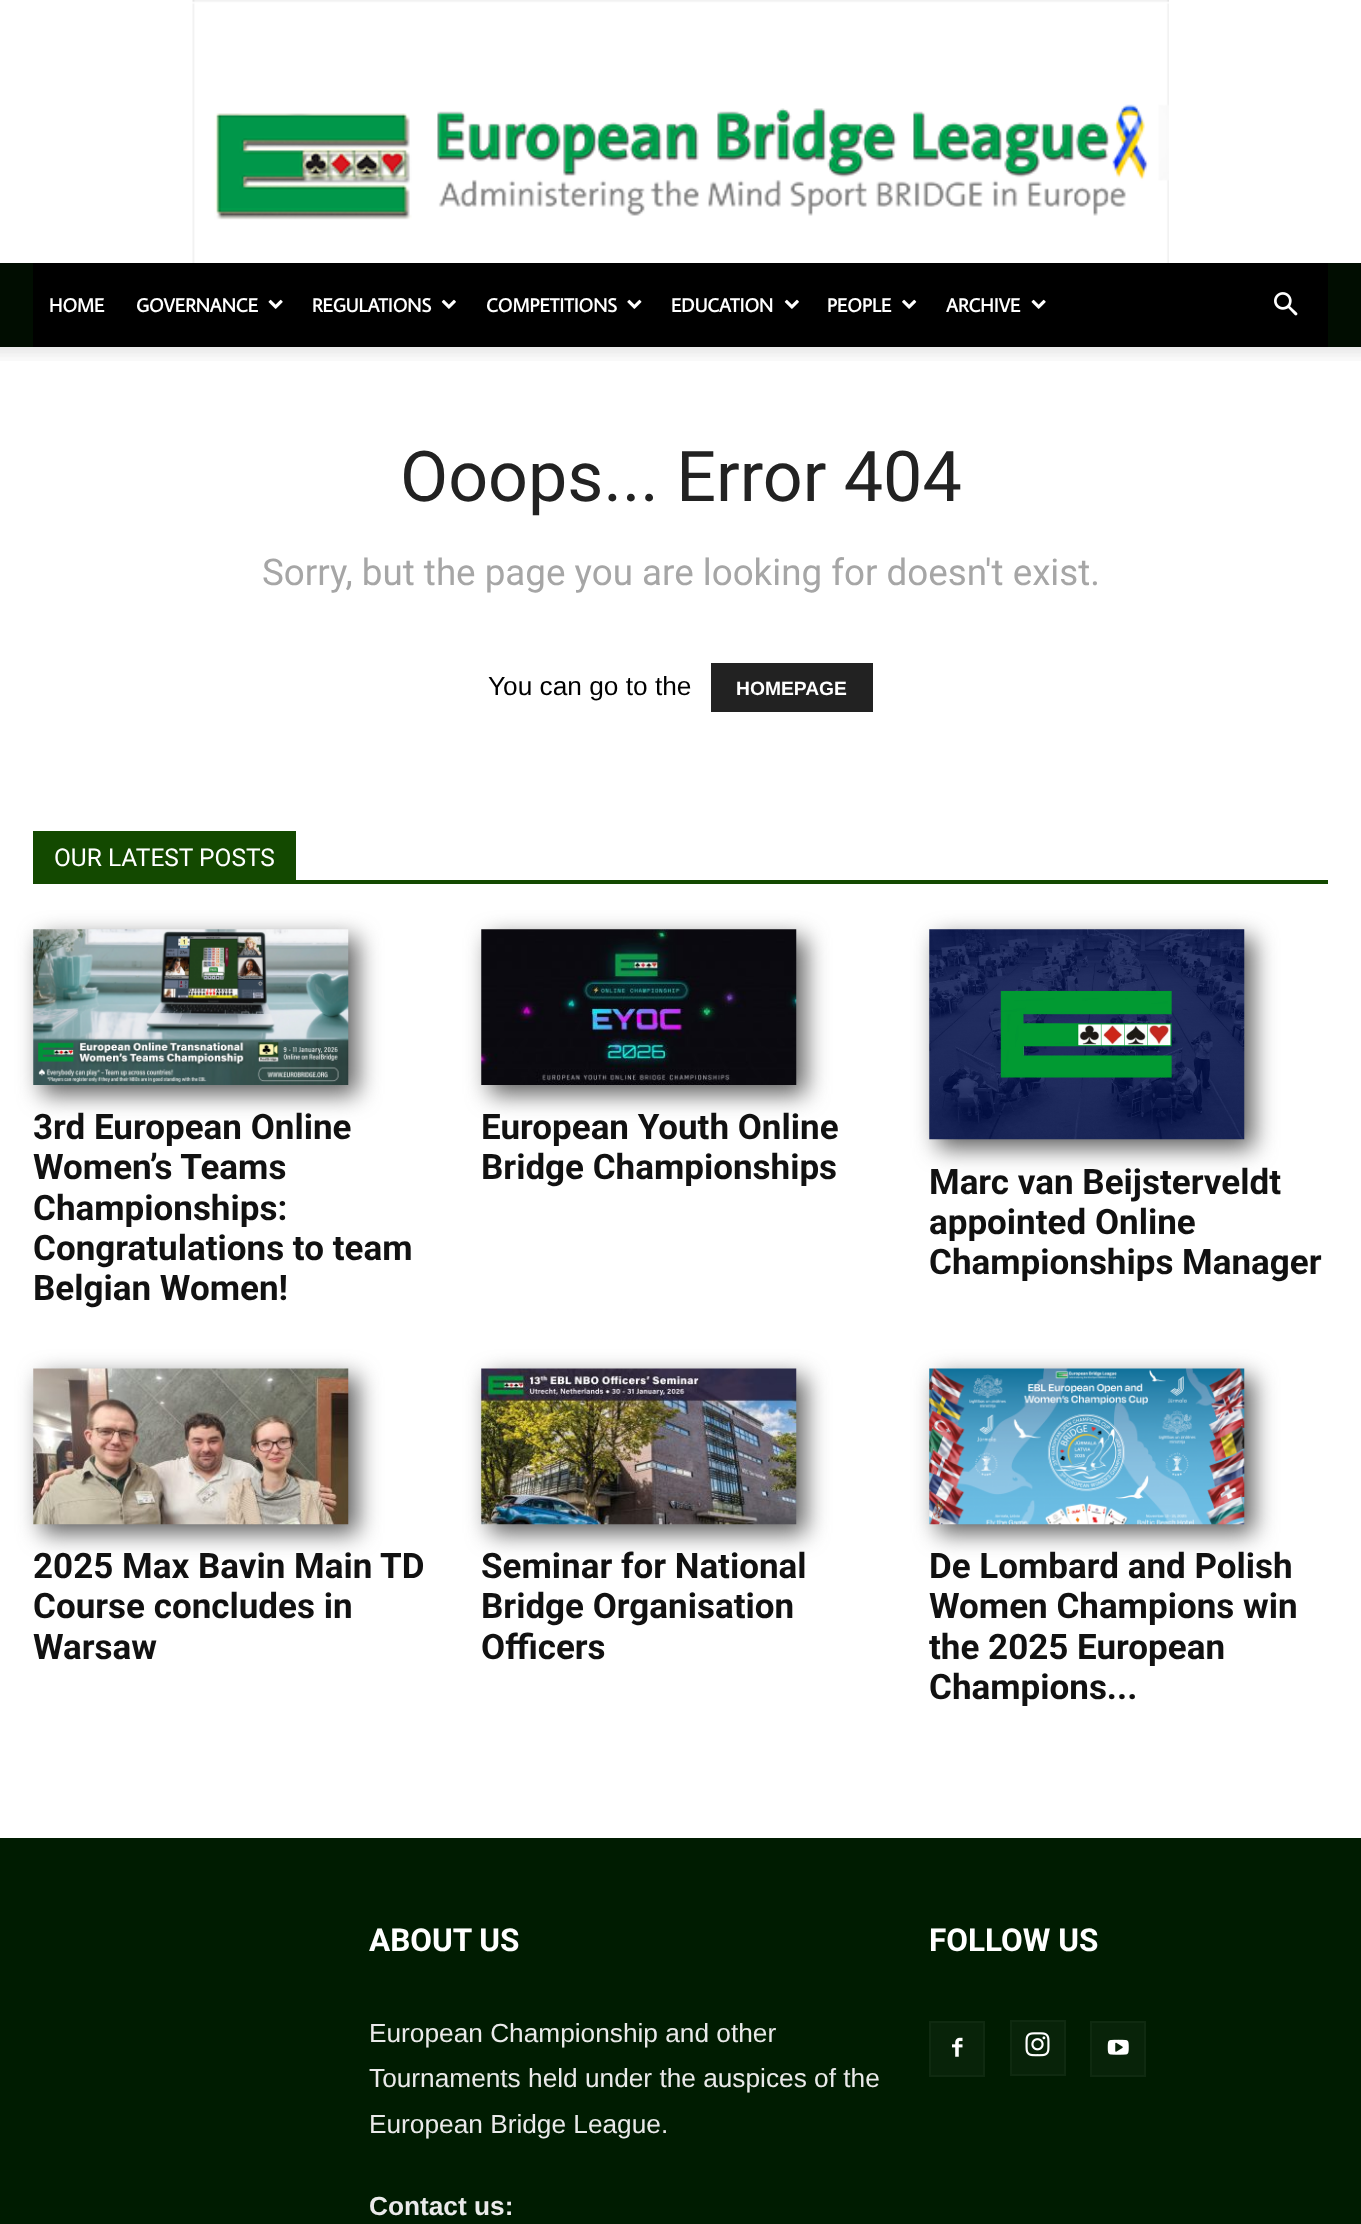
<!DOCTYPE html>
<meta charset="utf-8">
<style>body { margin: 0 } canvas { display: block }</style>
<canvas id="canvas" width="1361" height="2224"></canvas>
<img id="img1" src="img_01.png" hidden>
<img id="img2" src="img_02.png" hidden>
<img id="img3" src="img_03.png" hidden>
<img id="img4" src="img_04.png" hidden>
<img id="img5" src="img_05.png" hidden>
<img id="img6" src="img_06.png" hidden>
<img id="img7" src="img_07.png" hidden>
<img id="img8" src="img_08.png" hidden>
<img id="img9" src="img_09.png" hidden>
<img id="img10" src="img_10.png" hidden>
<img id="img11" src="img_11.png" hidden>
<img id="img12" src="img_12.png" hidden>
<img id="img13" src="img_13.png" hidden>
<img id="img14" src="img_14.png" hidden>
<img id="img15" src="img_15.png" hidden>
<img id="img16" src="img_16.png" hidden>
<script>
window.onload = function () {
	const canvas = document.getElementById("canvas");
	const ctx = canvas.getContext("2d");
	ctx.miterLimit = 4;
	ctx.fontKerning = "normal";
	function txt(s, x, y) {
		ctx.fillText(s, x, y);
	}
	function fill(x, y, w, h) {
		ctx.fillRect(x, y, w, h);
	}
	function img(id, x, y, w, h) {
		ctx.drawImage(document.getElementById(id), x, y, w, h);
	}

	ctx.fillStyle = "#FFFFFF";
	fill(0, 0, 1361, 2224);
	img("img1", 192, 0, 977, 263);
	ctx.fillStyle = "#010D01";
	fill(0, 263, 1361, 84);
	ctx.fillStyle = "#000000";
	fill(33, 263, 1295, 84);
	img("img2", 268, 299, 15, 10);
	img("img3", 441, 299, 15, 10);
	img("img4", 627, 299, 15, 10);
	img("img3", 784, 299, 15, 10);
	img("img5", 902, 299, 15, 10);
	img("img2", 1031, 299, 15, 10);
	img("img6", 1274, 292, 24, 24);
	img("img7", 0, 347, 1361, 14);
	ctx.fillStyle = "#222222";
	fill(711, 663, 162, 49);
	ctx.fillStyle = "#134900";
	fill(33, 880, 1295, 4);
	fill(33, 831, 263, 49);
	ctx.fillStyle = "#5C5C5C";
	ctx.filter = "blur(11.5px)";
	ctx.beginPath();
	ctx.rect(42, 938, 315, 156);
	ctx.fill();
	ctx.filter = "none";
	img("img8", 33, 929, 316, 156);
	ctx.filter = "blur(11.5px)";
	ctx.beginPath();
	ctx.rect(490, 938, 315, 156);
	ctx.fill();
	ctx.filter = "none";
	img("img9", 481, 929, 316, 156);
	ctx.filter = "blur(11.5px)";
	ctx.beginPath();
	ctx.rect(938, 938, 315, 210);
	ctx.fill();
	ctx.filter = "none";
	img("img10", 929, 929, 316, 211);
	ctx.filter = "blur(11.5px)";
	ctx.beginPath();
	ctx.rect(42, 1377, 315, 156);
	ctx.fill();
	ctx.filter = "none";
	img("img11", 33, 1368, 316, 157);
	ctx.filter = "blur(11.5px)";
	ctx.beginPath();
	ctx.rect(490, 1377, 315, 156);
	ctx.fill();
	ctx.filter = "none";
	img("img12", 481, 1368, 316, 157);
	ctx.filter = "blur(11.5px)";
	ctx.beginPath();
	ctx.rect(938, 1377, 315, 156);
	ctx.fill();
	ctx.filter = "none";
	img("img13", 929, 1368, 316, 157);
	ctx.fillStyle = "#001C01";
	fill(0, 1838, 1361, 386);
	ctx.fillStyle = "#082309";
	fill(931, 2023, 52, 52);
	img("img14", 952, 2037, 11, 20);
	ctx.strokeStyle = "#0F2A10";
	ctx.lineWidth = 2;
	ctx.strokeRect(930, 2022, 54, 54);
	fill(1012, 2022, 52, 52);
	img("img15", 1025, 2032, 25, 25);
	ctx.strokeRect(1011, 2021, 54, 54);
	fill(1092, 2023, 52, 52);
	img("img16", 1107, 2039, 22, 16);
	ctx.strokeRect(1091, 2022, 54, 54);
	ctx.font = "bold 19.25px Average Sans";
	ctx.fillStyle = "#FFFFFF";
	txt("HOME", 49, 312);
	txt("GOVERNANCE", 136, 312);
	txt("REGULATIONS", 312, 312);
	txt("COMPETITIONS", 486, 312);
	txt("EDUCATION", 671, 312);
	txt("PEOPLE", 827, 312);
	txt("ARCHIVE", 946, 312);
	ctx.font = "70px Roboto";
	ctx.fillStyle = "#222222";
	txt("Ooops... Error 404", 400, 501);
	ctx.font = "36.75px Roboto";
	ctx.fillStyle = "#A6A6A6";
	txt("Sorry, but the page you are looking for doesn't exist.", 262, 585);
	ctx.font = "26.25px Liberation Sans";
	ctx.fillStyle = "#000000";
	txt("You can go to the", 488, 695);
	ctx.font = "bold 19.25px Liberation Sans";
	ctx.fillStyle = "#FFFFFF";
	txt("HOMEPAGE", 736, 695);
	ctx.font = "24.5px Roboto";
	txt("OUR LATEST POSTS", 54, 866);
	ctx.font = "bold 35px Roboto";
	ctx.fillStyle = "#111111";
	txt("3rd European Online", 33, 1139);
	txt("Women’s Teams", 33, 1179);
	txt("Championships:", 33, 1220);
	txt("Congratulations to team", 33, 1260);
	txt("Belgian Women!", 33, 1300);
	txt("European Youth Online", 481, 1139);
	txt("Bridge Championships", 481, 1179);
	txt("Marc van Beijsterveldt", 929, 1194);
	txt("appointed Online", 929, 1234);
	txt("Championships Manager", 929, 1274);
	txt("2025 Max Bavin Main TD", 33, 1578);
	txt("Course concludes in", 33, 1618);
	txt("Warsaw", 33, 1659);
	txt("Seminar for National", 481, 1578);
	txt("Bridge Organisation", 481, 1618);
	txt("Officers", 481, 1659);
	txt("De Lombard and Polish", 929, 1578);
	txt("Women Champions win", 929, 1618);
	txt("the 2025 European", 929, 1659);
	txt("Champions...", 929, 1699);
	ctx.font = "bold 31.5px Roboto";
	ctx.fillStyle = "#FFFFFF";
	txt("ABOUT US", 369, 1951);
	ctx.font = "26.25px Liberation Sans";
	ctx.fillStyle = "#EAEAEA";
	txt("European Championship and other", 369, 2042);
	txt("Tournaments held under the auspices of the", 369, 2087);
	txt("European Bridge League.", 369, 2133);
	ctx.font = "bold 26.25px Liberation Sans";
	txt("Contact us:", 369, 2215);
	ctx.font = "bold 31.5px Roboto";
	ctx.fillStyle = "#FFFFFF";
	txt("FOLLOW US", 929, 1951);
};
</script>
